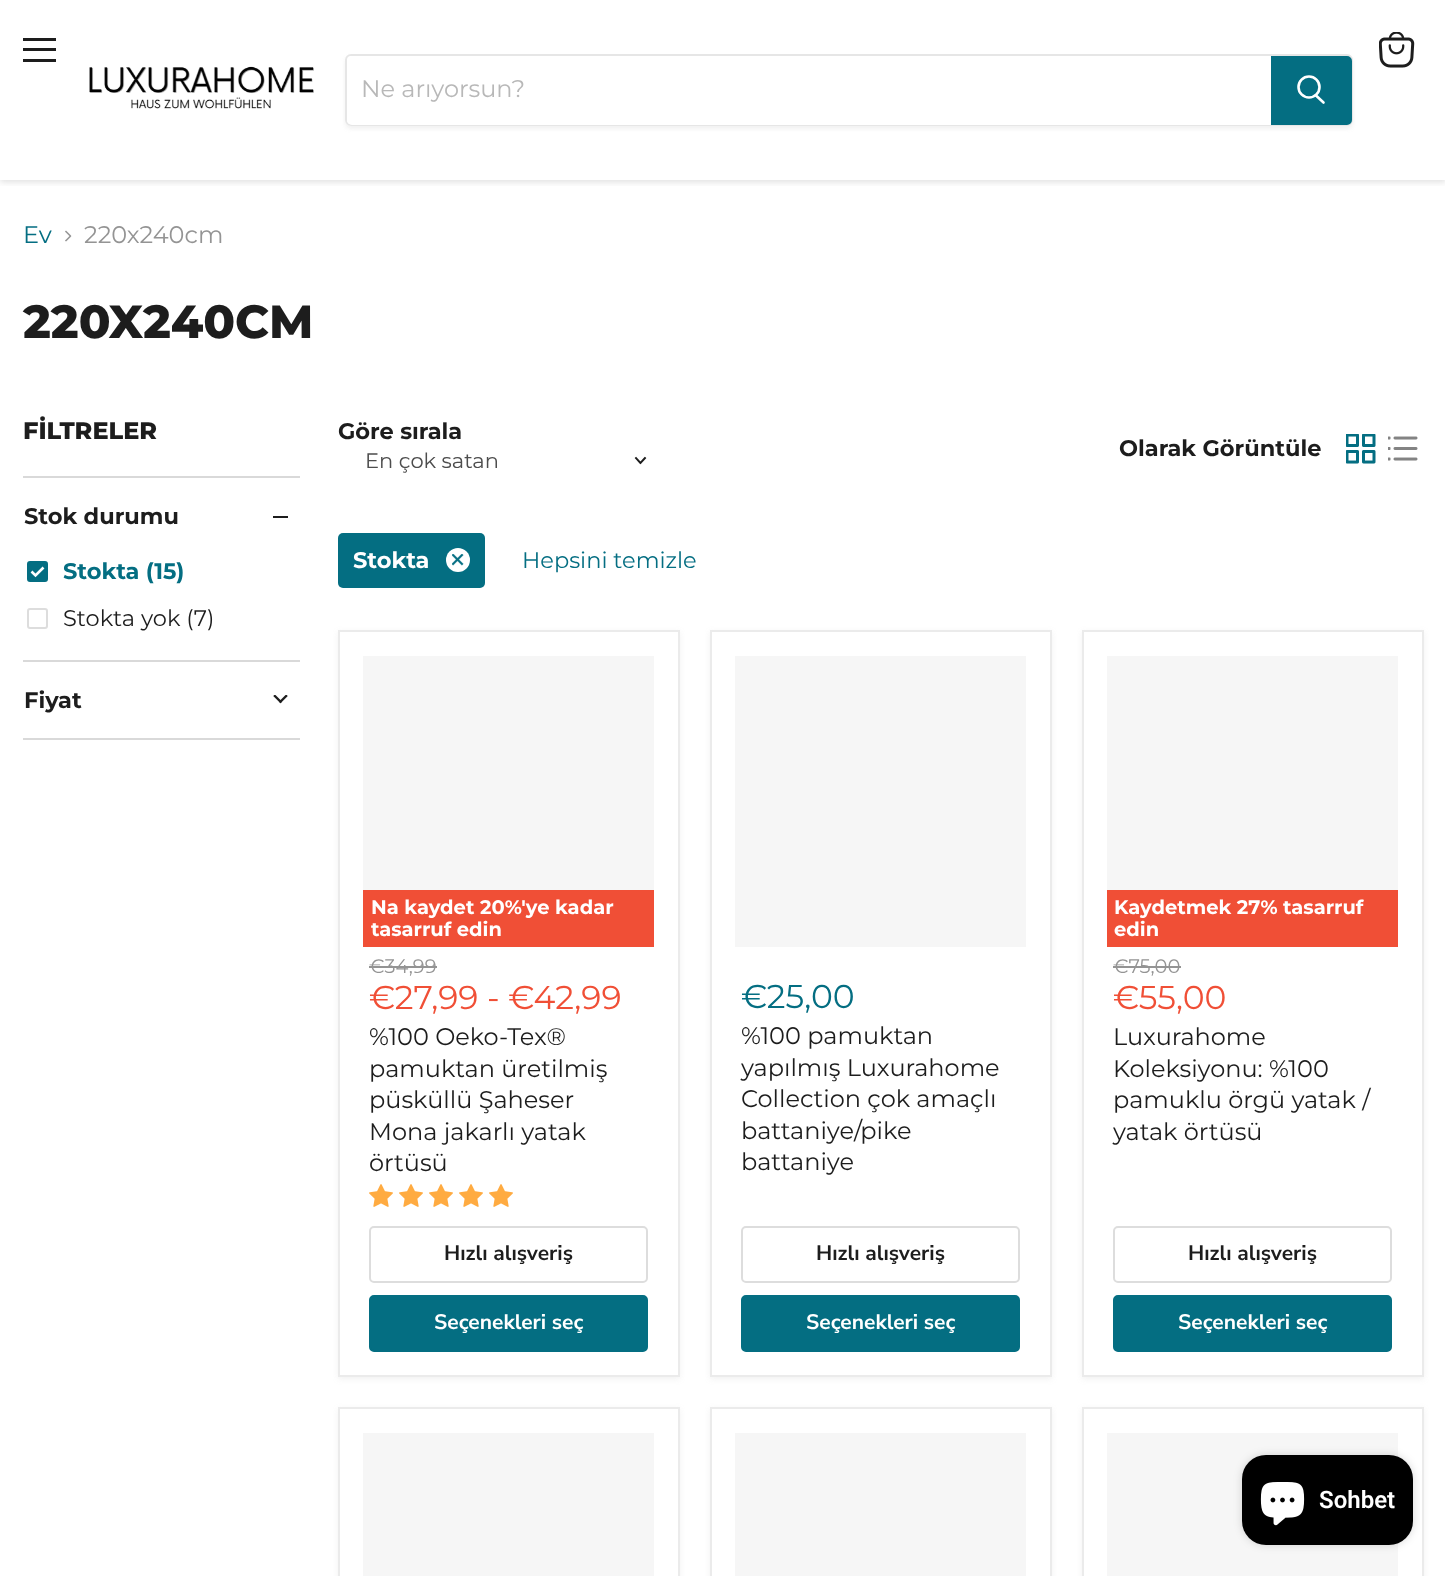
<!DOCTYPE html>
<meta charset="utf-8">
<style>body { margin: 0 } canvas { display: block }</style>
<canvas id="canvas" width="1445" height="1576"></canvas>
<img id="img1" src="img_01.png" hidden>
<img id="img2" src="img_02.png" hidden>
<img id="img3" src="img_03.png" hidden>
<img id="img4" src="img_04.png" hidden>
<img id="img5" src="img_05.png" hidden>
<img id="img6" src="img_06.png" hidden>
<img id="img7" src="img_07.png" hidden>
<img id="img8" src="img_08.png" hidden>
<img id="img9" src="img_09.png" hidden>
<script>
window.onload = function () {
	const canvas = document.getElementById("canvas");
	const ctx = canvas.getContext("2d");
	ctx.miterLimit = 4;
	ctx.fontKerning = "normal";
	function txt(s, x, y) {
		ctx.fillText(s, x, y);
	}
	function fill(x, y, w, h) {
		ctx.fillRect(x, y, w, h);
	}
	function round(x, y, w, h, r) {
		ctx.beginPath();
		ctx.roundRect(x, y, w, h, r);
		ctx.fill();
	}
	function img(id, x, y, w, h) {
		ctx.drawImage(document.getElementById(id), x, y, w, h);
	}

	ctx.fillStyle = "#FFFFFF";
	fill(0, 0, 1445, 1576);
	ctx.save();
	ctx.beginPath();
	ctx.rect(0, 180, 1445, 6);
	ctx.clip();
	ctx.fillStyle = "rgba(128, 128, 128, 0.25)";
	ctx.filter = "blur(3px)";
	ctx.beginPath();
	ctx.rect(0, 2, 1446, 180);
	ctx.fill();
	ctx.filter = "none";
	ctx.restore();
	ctx.fillStyle = "#1D1D1D";
	fill(23, 38, 33, 3);
	fill(23, 48, 33, 3);
	fill(23, 59, 33, 3);
	img("img1", 1379, 32, 36, 36);
	img("img2", 89, 66, 225, 43);
	ctx.save();
	ctx.beginPath();
	ctx.moveTo(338, 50);
	ctx.lineTo(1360, 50);
	ctx.lineTo(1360, 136);
	ctx.lineTo(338, 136);
	ctx.closePath();
	ctx.moveTo(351, 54);
	ctx.lineTo(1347, 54);
	ctx.bezierCurveTo(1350.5, 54, 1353, 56.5, 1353, 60);
	ctx.lineTo(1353, 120);
	ctx.bezierCurveTo(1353, 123.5, 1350.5, 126, 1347, 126);
	ctx.lineTo(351, 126);
	ctx.bezierCurveTo(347.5, 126, 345, 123.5, 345, 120);
	ctx.lineTo(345, 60);
	ctx.bezierCurveTo(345, 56.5, 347.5, 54, 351, 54);
	ctx.closePath();
	ctx.clip("evenodd");
	ctx.fillStyle = "rgba(128, 128, 128, 0.11)";
	ctx.filter = "blur(2px)";
	ctx.beginPath();
	ctx.roundRect(345, 57, 1008, 72, 6);
	ctx.fill();
	ctx.filter = "none";
	ctx.restore();
	ctx.beginPath();
	ctx.roundRect(346, 55, 1006, 70, 5);
	ctx.strokeStyle = "rgba(128, 128, 128, 0.2)";
	ctx.lineWidth = 2;
	ctx.stroke();
	ctx.fillStyle = "#FFFFFF";
	ctx.beginPath();
	ctx.roundRect(347, 56, 924, 69, [5, 0, 0, 5]);
	ctx.fill();
	ctx.fillStyle = "#046E82";
	ctx.beginPath();
	ctx.roundRect(1272, 57, 79, 67, [0, 4, 4, 0]);
	ctx.fill();
	ctx.strokeStyle = "#046E82";
	ctx.stroke();
	ctx.beginPath();
	ctx.moveTo(1323.5, 102.5);
	ctx.lineTo(1316, 95.5);
	ctx.strokeStyle = "#FFFFFF";
	ctx.lineWidth = 2.6;
	ctx.lineCap = "round";
	ctx.stroke();
	ctx.beginPath();
	ctx.arc(1309, 87, 10.5, 0, Math.PI * 2);
	ctx.stroke();
	img("img3", 65, 230, 7, 12);
	ctx.fillStyle = "#D9D9D9";
	fill(23, 476, 277, 2);
	ctx.fillStyle = "#1D1D1D";
	fill(273, 516, 15, 2);
	ctx.fillStyle = "#046E82";
	ctx.beginPath();
	ctx.roundRect(28, 562, 19, 19, 2);
	ctx.fill();
	ctx.strokeStyle = "#046E82";
	ctx.lineWidth = 2;
	ctx.stroke();
	ctx.beginPath();
	ctx.moveTo(31.5, 571.5);
	ctx.lineTo(35.5, 575.5);
	ctx.lineTo(43.5, 567.5);
	ctx.strokeStyle = "#FFFFFF";
	ctx.lineWidth = 2.6;
	ctx.lineCap = "butt";
	ctx.stroke();
	ctx.beginPath();
	ctx.roundRect(28, 609, 19, 19, 2);
	ctx.strokeStyle = "#DDDDDD";
	ctx.lineWidth = 2;
	ctx.stroke();
	ctx.fillStyle = "#D9D9D9";
	fill(23, 660, 277, 2);
	fill(23, 738, 277, 2);
	img("img4", 273, 695, 15, 9);
	ctx.beginPath();
	ctx.moveTo(640.5, 463);
	ctx.lineTo(645, 458);
	ctx.moveTo(640.5, 463);
	ctx.lineTo(636, 458);
	ctx.strokeStyle = "#1D1D1D";
	ctx.lineWidth = 1.9;
	ctx.lineCap = "square";
	ctx.stroke();
	img("img5", 1346, 434, 30, 30);
	img("img6", 1388, 436, 30, 25);
	ctx.fillStyle = "#046E82";
	round(338, 533, 147, 55, 5);
	ctx.fillStyle = "#FFFFFF";
	ctx.beginPath();
	ctx.arc(458, 560, 12, 0, Math.PI * 2);
	ctx.fill();
	img("img7", 452, 554, 12, 12);
	ctx.fillStyle = "rgba(128, 128, 128, 0.11)";
	ctx.filter = "blur(3px)";
	ctx.beginPath();
	ctx.rect(338, 632, 342, 747);
	ctx.fill();
	ctx.filter = "none";
	ctx.fillStyle = "#FFFFFF";
	ctx.beginPath();
	ctx.rect(339, 631, 340, 745);
	ctx.fill();
	ctx.strokeStyle = "#EBEBEB";
	ctx.lineWidth = 2;
	ctx.stroke();
	ctx.fillStyle = "#F6F6F6";
	fill(363, 656, 291, 234);
	ctx.fillStyle = "#F04F36";
	fill(363, 890, 291, 57);
	ctx.fillStyle = "#949494";
	fill(369, 966, 68, 2);
	img("img8", 369, 1184, 24, 23);
	img("img8", 399, 1184, 24, 23);
	img("img8", 429, 1184, 24, 23);
	img("img8", 459, 1184, 24, 23);
	img("img8", 489, 1184, 24, 23);
	ctx.beginPath();
	ctx.roundRect(370, 1227, 277, 55, 4);
	ctx.strokeStyle = "#DDDDDD";
	ctx.stroke();
	ctx.fillStyle = "#046E82";
	ctx.beginPath();
	ctx.roundRect(370, 1296, 277, 55, 4);
	ctx.fill();
	ctx.strokeStyle = "#046E82";
	ctx.stroke();
	ctx.fillStyle = "rgba(128, 128, 128, 0.11)";
	ctx.filter = "blur(3px)";
	ctx.beginPath();
	ctx.rect(710, 632, 342, 747);
	ctx.fill();
	ctx.filter = "none";
	ctx.fillStyle = "#FFFFFF";
	ctx.beginPath();
	ctx.rect(711, 631, 340, 745);
	ctx.fill();
	ctx.strokeStyle = "#EBEBEB";
	ctx.stroke();
	ctx.fillStyle = "#F6F6F6";
	fill(735, 656, 291, 291);
	ctx.beginPath();
	ctx.roundRect(742, 1227, 277, 55, 4);
	ctx.strokeStyle = "#DDDDDD";
	ctx.stroke();
	ctx.fillStyle = "#046E82";
	ctx.beginPath();
	ctx.roundRect(742, 1296, 277, 55, 4);
	ctx.fill();
	ctx.strokeStyle = "#046E82";
	ctx.stroke();
	ctx.fillStyle = "rgba(128, 128, 128, 0.11)";
	ctx.filter = "blur(3px)";
	ctx.beginPath();
	ctx.rect(1082, 632, 342, 747);
	ctx.fill();
	ctx.filter = "none";
	ctx.fillStyle = "#FFFFFF";
	ctx.beginPath();
	ctx.rect(1083, 631, 340, 745);
	ctx.fill();
	ctx.strokeStyle = "#EBEBEB";
	ctx.stroke();
	ctx.fillStyle = "#F6F6F6";
	fill(1107, 656, 291, 234);
	ctx.fillStyle = "#F04F36";
	fill(1107, 890, 291, 57);
	ctx.fillStyle = "#949494";
	fill(1113, 966, 68, 2);
	ctx.beginPath();
	ctx.roundRect(1114, 1227, 277, 55, 4);
	ctx.strokeStyle = "#DDDDDD";
	ctx.stroke();
	ctx.fillStyle = "#046E82";
	ctx.beginPath();
	ctx.roundRect(1114, 1296, 277, 55, 4);
	ctx.fill();
	ctx.strokeStyle = "#046E82";
	ctx.stroke();
	ctx.fillStyle = "rgba(128, 128, 128, 0.11)";
	ctx.filter = "blur(3px)";
	ctx.beginPath();
	ctx.rect(338, 1409, 342, 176);
	ctx.fill();
	ctx.filter = "none";
	ctx.fillStyle = "#FFFFFF";
	ctx.beginPath();
	ctx.rect(339, 1408, 340, 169);
	ctx.fill();
	ctx.strokeStyle = "#EBEBEB";
	ctx.stroke();
	ctx.fillStyle = "#F6F6F6";
	fill(363, 1433, 291, 143);
	ctx.fillStyle = "rgba(128, 128, 128, 0.11)";
	ctx.filter = "blur(3px)";
	ctx.beginPath();
	ctx.rect(710, 1409, 342, 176);
	ctx.fill();
	ctx.filter = "none";
	ctx.fillStyle = "#FFFFFF";
	ctx.beginPath();
	ctx.rect(711, 1408, 340, 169);
	ctx.fill();
	ctx.stroke();
	ctx.fillStyle = "#F6F6F6";
	fill(735, 1433, 291, 143);
	ctx.fillStyle = "rgba(128, 128, 128, 0.11)";
	ctx.filter = "blur(3px)";
	ctx.beginPath();
	ctx.rect(1082, 1409, 342, 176);
	ctx.fill();
	ctx.filter = "none";
	ctx.fillStyle = "#FFFFFF";
	ctx.beginPath();
	ctx.rect(1083, 1408, 340, 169);
	ctx.fill();
	ctx.stroke();
	ctx.fillStyle = "#F6F6F6";
	fill(1107, 1433, 291, 143);
	ctx.fillStyle = "rgba(0, 0, 0, 0.15)";
	ctx.filter = "blur(4px)";
	ctx.beginPath();
	ctx.roundRect(1242, 1455, 171, 90, 24);
	ctx.fill();
	ctx.filter = "none";
	ctx.fillStyle = "#000000";
	round(1242, 1455, 171, 90, 24);
	img("img9", 1260, 1482, 45, 44);
	ctx.font = "24px Montserrat";
	ctx.fillStyle = "#B8B8B8";
	txt("Ne arıyorsun?", 361, 97);
	ctx.fillStyle = "#046E82";
	txt("Ev", 23, 243);
	ctx.fillStyle = "#949494";
	txt("220x240cm", 84, 243);
	ctx.font = "800 46.5px Montserrat";
	ctx.fillStyle = "#1D1D1D";
	txt("220X240CM", 23, 338);
	ctx.font = "800 24px Montserrat";
	txt("FİLTRELER", 23, 439);
	ctx.font = "bold 22.5px Montserrat";
	txt("Stok durumu", 24, 524);
	ctx.fillStyle = "#046E82";
	txt("Stokta (15)", 63, 579);
	ctx.font = "22.5px Montserrat";
	ctx.fillStyle = "#1D1D1D";
	txt("Stokta yok (7)", 63, 626);
	ctx.font = "bold 22.5px Montserrat";
	txt("Fiyat", 24, 708);
	txt("Göre sırala", 338, 439);
	ctx.font = "21px Montserrat";
	ctx.fillStyle = "#4D4D4D";
	txt("En çok satan", 365, 468);
	ctx.font = "bold 22.5px Montserrat";
	ctx.fillStyle = "#1D1D1D";
	txt("Olarak Görüntüle", 1119, 456);
	ctx.fillStyle = "#FFFFFF";
	txt("Stokta", 353, 568);
	ctx.font = "22.5px Montserrat";
	ctx.fillStyle = "#046E82";
	txt("Hepsini temizle", 522, 568);
	ctx.font = "bold 19.5px Montserrat";
	ctx.fillStyle = "#FFFFFF";
	txt("Na kaydet 20%'ye kadar", 371, 914);
	txt("tasarruf edin", 371, 936);
	ctx.font = "19.5px Montserrat";
	ctx.fillStyle = "#949494";
	txt("€34,99", 369, 973);
	ctx.font = "33px Montserrat";
	ctx.fillStyle = "#F04F36";
	txt("€27,99 - €42,99", 369, 1009);
	ctx.font = "24px Montserrat";
	ctx.fillStyle = "#1D1D1D";
	txt("%100 Oeko-Tex®", 369, 1045);
	txt("pamuktan üretilmiş", 369, 1077);
	txt("püsküllü Şaheser", 369, 1108);
	txt("Mona jakarlı yatak", 369, 1140);
	txt("örtüsü", 369, 1171);
	ctx.font = "bold 21px Nunito Sans";
	txt("Hızlı alışveriş", 444, 1260);
	ctx.fillStyle = "#FFFFFF";
	txt("Seçenekleri seç", 434, 1329);
	ctx.font = "33px Montserrat";
	ctx.fillStyle = "#046E82";
	txt("€25,00", 741, 1008);
	ctx.font = "24px Montserrat";
	ctx.fillStyle = "#1D1D1D";
	txt("%100 pamuktan", 741, 1044);
	txt("yapılmış Luxurahome", 741, 1076);
	txt("Collection çok amaçlı", 741, 1107);
	txt("battaniye/pike", 741, 1139);
	txt("battaniye", 741, 1170);
	ctx.font = "bold 21px Nunito Sans";
	txt("Hızlı alışveriş", 816, 1260);
	ctx.fillStyle = "#FFFFFF";
	txt("Seçenekleri seç", 806, 1329);
	ctx.font = "bold 19.5px Montserrat";
	txt("Kaydetmek 27% tasarruf", 1114, 914);
	txt("edin", 1114, 936);
	ctx.font = "19.5px Montserrat";
	ctx.fillStyle = "#949494";
	txt("€75,00", 1113, 973);
	ctx.font = "33px Montserrat";
	ctx.fillStyle = "#F04F36";
	txt("€55,00", 1113, 1009);
	ctx.font = "24px Montserrat";
	ctx.fillStyle = "#1D1D1D";
	txt("Luxurahome", 1113, 1045);
	txt("Koleksiyonu: %100", 1113, 1077);
	txt("pamuklu örgü yatak /", 1113, 1108);
	txt("yatak örtüsü", 1113, 1140);
	ctx.font = "bold 21px Nunito Sans";
	txt("Hızlı alışveriş", 1188, 1260);
	ctx.fillStyle = "#FFFFFF";
	txt("Seçenekleri seç", 1178, 1329);
	ctx.font = "600 24px Roboto";
	txt("Sohbet", 1319, 1508);
};
</script>
